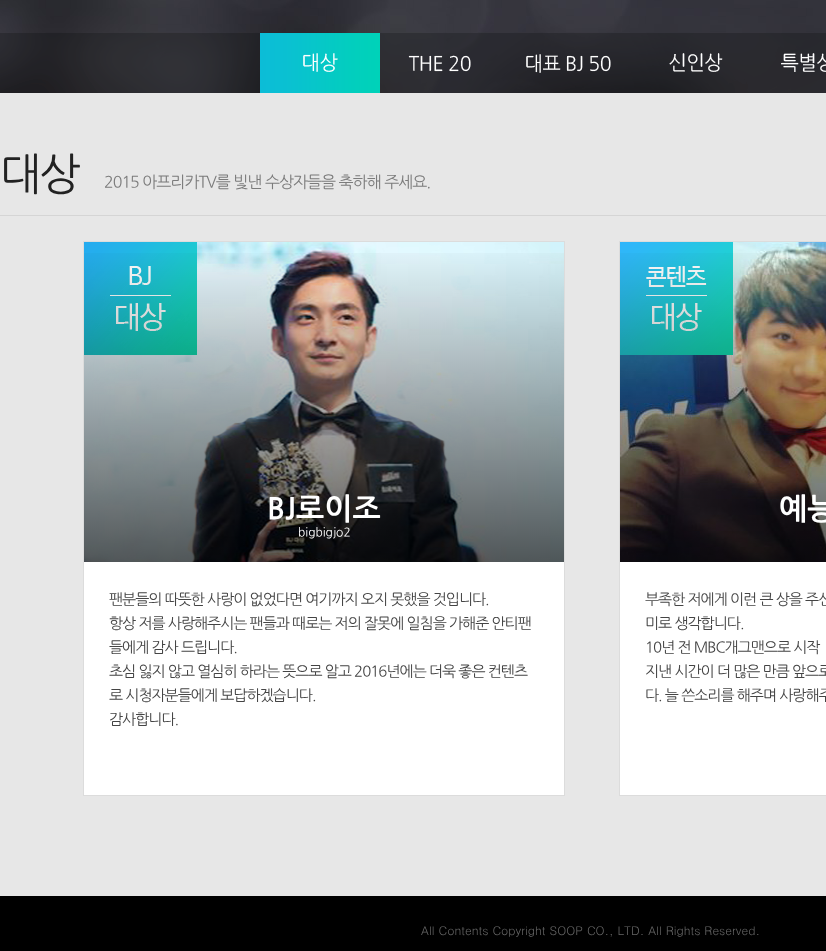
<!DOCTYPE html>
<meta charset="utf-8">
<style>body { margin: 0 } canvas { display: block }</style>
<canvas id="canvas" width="826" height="951"></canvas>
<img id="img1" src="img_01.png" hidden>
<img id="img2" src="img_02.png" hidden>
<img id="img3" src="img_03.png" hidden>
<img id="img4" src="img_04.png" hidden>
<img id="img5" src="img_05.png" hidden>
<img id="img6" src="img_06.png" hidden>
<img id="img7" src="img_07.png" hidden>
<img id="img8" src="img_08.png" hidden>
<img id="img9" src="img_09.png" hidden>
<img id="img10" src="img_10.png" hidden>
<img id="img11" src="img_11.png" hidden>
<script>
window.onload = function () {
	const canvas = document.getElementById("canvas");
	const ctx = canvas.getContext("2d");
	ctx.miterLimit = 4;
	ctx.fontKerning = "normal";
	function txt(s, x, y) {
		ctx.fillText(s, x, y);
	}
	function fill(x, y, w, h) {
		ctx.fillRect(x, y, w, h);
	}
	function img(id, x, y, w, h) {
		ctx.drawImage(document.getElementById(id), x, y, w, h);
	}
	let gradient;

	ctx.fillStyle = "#E7E7E7";
	fill(0, 0, 826, 951);
	img("img1", 0, 0, 826, 33);
	img("img2", 0, 33, 826, 60);
	img("img3", 260, 33, 120, 60);
	img("img4", 408, 55, 63, 17);
	img("img5", 526, 54, 85, 19);
	img("img6", 669, 53, 54, 19);
	img("img7", 781, 53, 45, 19);
	ctx.fillStyle = "#D5D5D5";
	fill(0, 215, 826, 1);
	ctx.fillStyle = "#FFFFFF";
	fill(84, 562, 480, 233);
	ctx.strokeStyle = "#DCDCDC";
	ctx.strokeRect(83.5, 241.5, 481, 554);
	img("img8", 84, 242, 480, 320);
	img("img9", 84, 242, 113, 113);
	gradient = ctx.createLinearGradient(324, 242, 324, 562);
	gradient.addColorStop(0, "rgba(0, 0, 0, 0)");
	gradient.addColorStop(1, "rgba(0, 0, 0, 0.65)");
	ctx.fillStyle = gradient;
	fill(84, 253, 480, 309);
	ctx.fillStyle = "#FFFFFF";
	fill(620, 562, 206, 233);
	ctx.strokeRect(619.5, 241.5, 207, 554);
	img("img10", 620, 242, 206, 320);
	img("img11", 620, 242, 113, 113);
	gradient = ctx.createLinearGradient(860, 242, 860, 562);
	gradient.addColorStop(0, "rgba(0, 0, 0, 0)");
	gradient.addColorStop(1, "rgba(0, 0, 0, 0.65)");
	ctx.fillStyle = gradient;
	fill(620, 253, 206, 309);
	ctx.fillStyle = "#000000";
	fill(0, 896, 826, 55);
	ctx.letterSpacing = "-2px";
	ctx.font = "44px NanumGothic";
	ctx.fillStyle = "#222222";
	txt("대상", 0, 188);
	ctx.letterSpacing = "-1px";
	ctx.font = "16px NanumGothic";
	ctx.fillStyle = "#7B7B7B";
	txt("2015 아프리카TV를 빛낸 수상자들을 축하해 주세요.", 104, 187);
	ctx.letterSpacing = "0px";
	ctx.font = "bold 30px NanumGothic";
	ctx.fillStyle = "#FFFFFF";
	txt("BJ로이조", 267, 518);
	ctx.font = "12px NanumGothic";
	txt("bigbigjo2", 298, 536);
	ctx.letterSpacing = "-1px";
	ctx.font = "15px NanumGothic";
	ctx.fillStyle = "#444444";
	txt("팬분들의 따뜻한 사랑이 없었다면 여기까지 오지 못했을 것입니다.", 109, 604);
	txt("항상 저를 사랑해주시는 팬들과 때로는 저의 잘못에 일침을 가해준 안티팬", 109, 628);
	txt("들에게 감사 드립니다.", 109, 652);
	txt("초심 잃지 않고 열심히 하라는 뜻으로 알고 2016년에는 더욱 좋은 컨텐츠", 109, 676);
	txt("로 시청자분들에게 보답하겠습니다.", 109, 700);
	txt("감사합니다.", 109, 724);
	ctx.letterSpacing = "0px";
	ctx.font = "bold 30px NanumGothic";
	ctx.fillStyle = "#FFFFFF";
	txt("예능", 779, 518);
	ctx.letterSpacing = "-1px";
	ctx.font = "15px NanumGothic";
	ctx.fillStyle = "#444444";
	txt("부족한 저에게 이런 큰 상을 주신", 645, 604);
	txt("미로 생각합니다.", 645, 628);
	txt("10년 전 MBC개그맨으로 시작", 645, 652);
	txt("지낸 시간이 더 많은 만큼 앞으로", 645, 676);
	txt("다. 늘 쓴소리를 해주며 사랑해주", 645, 700);
	ctx.letterSpacing = "0px";
	ctx.font = "12px Dotum";
	ctx.fillStyle = "#666666";
	txt("All Contents Copyright SOOP CO., LTD. All Rights Reserved.", 421, 935);
};
</script>
